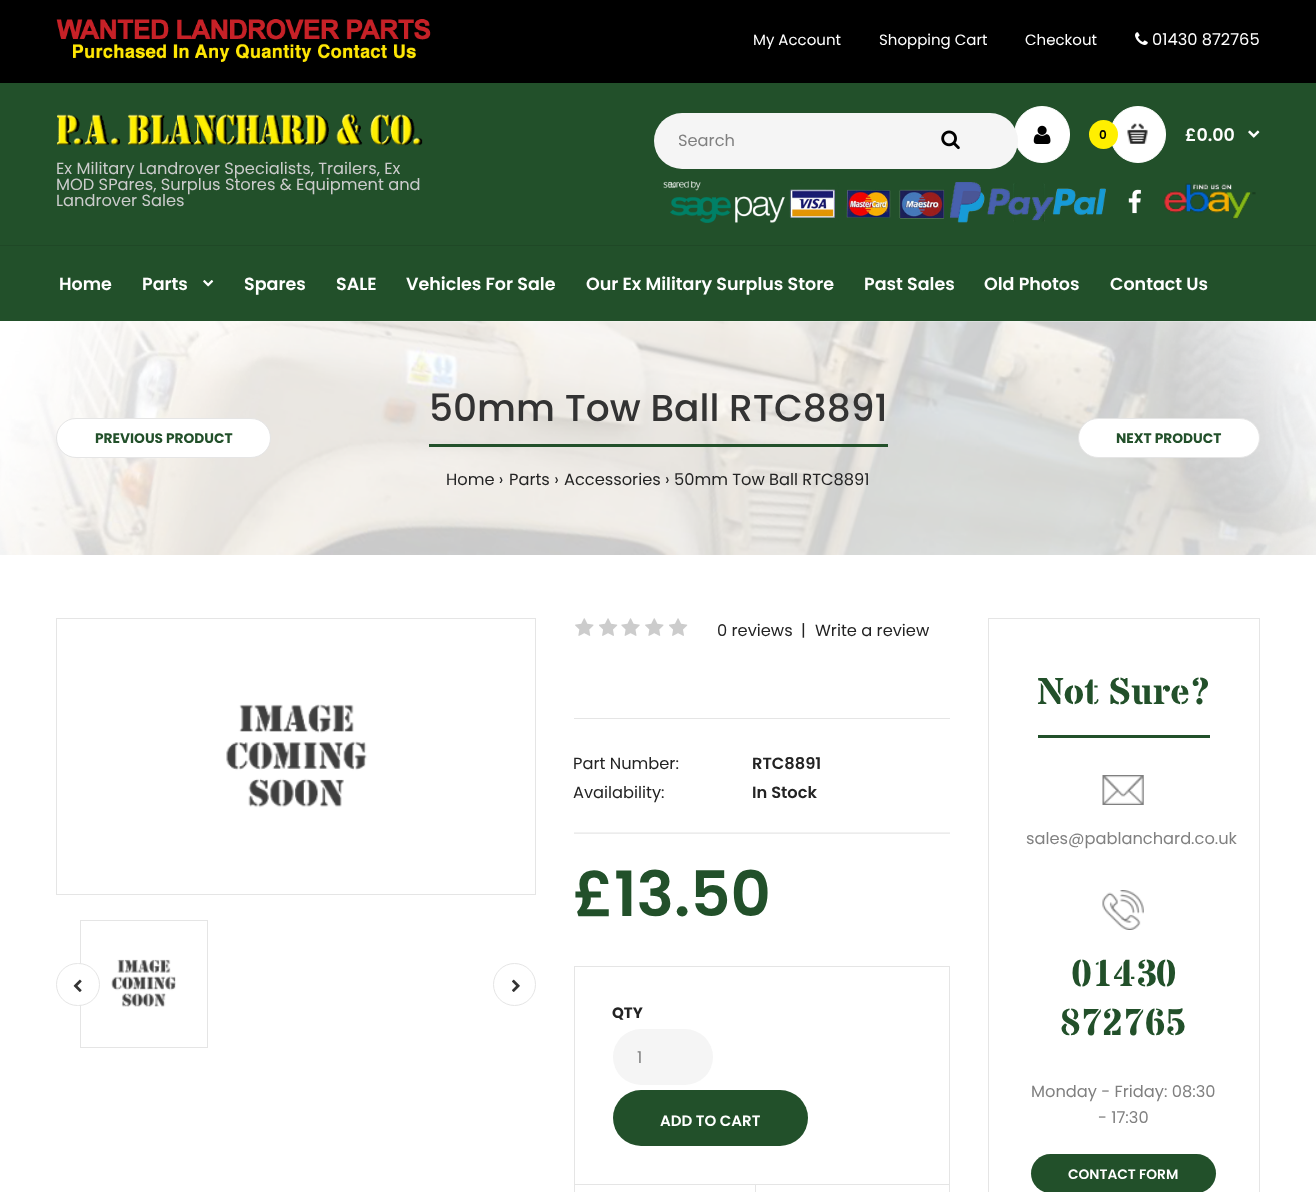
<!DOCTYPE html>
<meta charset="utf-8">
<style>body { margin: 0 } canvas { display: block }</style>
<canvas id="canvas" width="1316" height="1192"></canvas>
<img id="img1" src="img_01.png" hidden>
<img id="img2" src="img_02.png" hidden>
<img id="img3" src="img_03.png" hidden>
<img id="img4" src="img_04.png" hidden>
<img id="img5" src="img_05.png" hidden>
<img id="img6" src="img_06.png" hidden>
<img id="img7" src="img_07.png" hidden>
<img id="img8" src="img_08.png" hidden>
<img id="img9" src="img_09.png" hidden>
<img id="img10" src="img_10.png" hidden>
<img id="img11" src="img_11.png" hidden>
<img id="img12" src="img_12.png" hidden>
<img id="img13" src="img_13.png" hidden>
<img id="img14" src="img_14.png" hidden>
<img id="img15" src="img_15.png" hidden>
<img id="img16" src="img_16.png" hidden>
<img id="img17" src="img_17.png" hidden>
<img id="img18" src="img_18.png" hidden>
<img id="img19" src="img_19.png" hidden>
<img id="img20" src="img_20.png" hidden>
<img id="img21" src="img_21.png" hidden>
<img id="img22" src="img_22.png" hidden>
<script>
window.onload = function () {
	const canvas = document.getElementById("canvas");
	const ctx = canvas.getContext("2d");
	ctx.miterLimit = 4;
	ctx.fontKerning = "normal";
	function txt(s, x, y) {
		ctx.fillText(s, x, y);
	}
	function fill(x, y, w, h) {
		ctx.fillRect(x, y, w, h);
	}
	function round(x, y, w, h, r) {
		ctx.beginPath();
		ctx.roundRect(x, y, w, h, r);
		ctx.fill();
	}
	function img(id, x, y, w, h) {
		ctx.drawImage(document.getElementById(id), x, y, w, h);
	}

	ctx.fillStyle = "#FFFFFF";
	fill(0, 0, 1316, 1192);
	ctx.fillStyle = "#22502A";
	fill(0, 83, 1316, 238);
	ctx.fillStyle = "#000000";
	fill(0, 0, 1316, 83);
	img("img1", 56, 19, 375, 43);
	img("img2", 1135, 32, 13, 13);
	ctx.fillStyle = "#FFFFFF";
	ctx.beginPath();
	ctx.roundRect(1014.5, 106.5, 55, 56, 27.5);
	ctx.fill();
	ctx.strokeStyle = "#FFFFFF";
	ctx.stroke();
	ctx.fillStyle = "#F5F5F5";
	round(654, 113, 364, 56, 28);
	img("img3", 941, 130, 19, 20);
	img("img4", 1033, 125, 18, 19);
	ctx.fillStyle = "#FFFFFF";
	ctx.beginPath();
	ctx.roundRect(1110.5, 106.5, 55, 56, 27.5);
	ctx.fill();
	ctx.stroke();
	ctx.fillStyle = "#FFEF00";
	ctx.beginPath();
	ctx.arc(1103.5, 134.5, 14.5, 0, Math.PI * 2);
	ctx.fill();
	img("img5", 1127, 123, 21, 21);
	img("img6", 1248, 130, 12, 8);
	img("img7", 663, 181, 443, 42);
	img("img8", 1128, 189, 13, 25);
	img("img9", 1164, 183, 92, 36);
	img("img10", 56, 113, 367, 33);
	ctx.fillStyle = "#1F4826";
	fill(0, 245, 1316, 1);
	img("img11", 203, 280, 11, 7);
	img("img12", 0, 321, 1316, 234);
	ctx.fillStyle = "#FFFFFF";
	ctx.beginPath();
	ctx.roundRect(56.5, 418.5, 214, 39, 19.5);
	ctx.fill();
	ctx.strokeStyle = "#E5E5E5";
	ctx.stroke();
	ctx.fillStyle = "#22502A";
	fill(429, 444, 459, 3);
	ctx.fillStyle = "#FFFFFF";
	ctx.beginPath();
	ctx.roundRect(1078.5, 418.5, 181, 39, 19.5);
	ctx.fill();
	ctx.stroke();
	ctx.strokeRect(56.5, 618.5, 479, 276);
	img("img13", 226, 704, 141, 104);
	ctx.strokeRect(80.5, 920.5, 127, 127);
	img("img14", 111, 959, 65, 48);
	ctx.beginPath();
	ctx.roundRect(56.5, 963.5, 43, 42, 21);
	ctx.fill();
	ctx.stroke();
	img("img15", 73, 979, 9, 13);
	ctx.beginPath();
	ctx.arc(514.5, 984.5, 21, 0, Math.PI * 2);
	ctx.stroke();
	img("img16", 512, 979, 8, 13);
	ctx.fillStyle = "#E5E5E5";
	fill(574, 718, 376, 1);
	img("img17", 575, 618, 19, 18);
	img("img18", 599, 618, 19, 18);
	img("img19", 621, 618, 19, 18);
	img("img17", 645, 618, 19, 18);
	img("img18", 669, 618, 19, 18);
	img("img20", 574, 832, 376, 2);
	ctx.strokeRect(574.5, 966.5, 375, 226);
	ctx.fillStyle = "#F5F5F5";
	round(613, 1029, 100, 56, 28);
	ctx.fillStyle = "#22502A";
	round(613, 1090, 195, 56, 28);
	ctx.fillStyle = "#E5E5E5";
	fill(575, 1184, 374, 1);
	fill(755, 1185, 1, 7);
	ctx.strokeRect(988.5, 618.5, 271, 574);
	ctx.fillStyle = "#22502A";
	fill(1038, 735, 172, 3);
	img("img21", 1102, 775, 42, 30);
	img("img22", 1102, 890, 42, 40);
	round(1031, 1154, 185, 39, 19.5);
	ctx.font = "15px Poppins";
	ctx.fillStyle = "#FFFFFF";
	txt("My Account", 753, 45);
	txt("Shopping Cart", 879, 45);
	txt("Checkout", 1025, 45);
	ctx.font = "16.25px Poppins";
	txt("01430 872765", 1152, 45);
	ctx.fillStyle = "#808080";
	txt("Search", 678, 146);
	ctx.font = "600 12px Poppins";
	ctx.fillStyle = "#000000";
	txt("0", 1099, 139);
	ctx.font = "600 17.5px Poppins";
	ctx.fillStyle = "#FFFFFF";
	txt("£0.00", 1185, 141);
	ctx.font = "16.25px Poppins";
	ctx.fillStyle = "#CCCCCC";
	txt("Ex Military Landrover Specialists, Trailers, Ex", 56, 174);
	txt("MOD SPares, Surplus Stores & Equipment and", 56, 190);
	txt("Landrover Sales", 56, 206);
	ctx.font = "600 17.5px Poppins";
	ctx.fillStyle = "#FFFFFF";
	txt("Home", 59, 290);
	txt("Parts", 142, 290);
	txt("Spares", 244, 290);
	txt("SALE", 336, 290);
	txt("Vehicles For Sale", 406, 290);
	txt("Our Ex Military Surplus Store", 586, 290);
	txt("Past Sales", 864, 290);
	txt("Old Photos", 984, 290);
	txt("Contact Us", 1110, 290);
	ctx.font = "bold 13.75px Poppins";
	ctx.fillStyle = "#22502A";
	txt("PREVIOUS PRODUCT", 95, 443);
	ctx.font = "500 37.5px Poppins";
	ctx.fillStyle = "#333333";
	txt("50mm Tow Ball RTC8891", 429, 421);
	ctx.font = "16.25px Poppins";
	ctx.fillStyle = "#232323";
	txt("Home ›", 446, 485);
	txt("Parts ›", 509, 485);
	txt("Accessories ›", 564, 485);
	txt("50mm Tow Ball RTC8891", 674, 485);
	ctx.font = "bold 13.75px Poppins";
	ctx.fillStyle = "#22502A";
	txt("NEXT PRODUCT", 1116, 443);
	ctx.font = "16.25px Poppins";
	ctx.fillStyle = "#232323";
	txt("0 reviews", 717, 636);
	txt("|", 801, 636);
	txt("Write a review", 815, 636);
	txt("Part Number:", 573, 769);
	ctx.font = "600 16.25px Poppins";
	txt("RTC8891", 752, 769);
	ctx.font = "16.25px Poppins";
	txt("Availability:", 573, 798);
	ctx.font = "600 16.25px Poppins";
	txt("In Stock", 752, 798);
	ctx.font = "600 62.5px Poppins";
	ctx.fillStyle = "#22502A";
	txt("£13.50", 573, 916);
	ctx.font = "bold 15px Poppins";
	ctx.fillStyle = "#232323";
	txt("QTY", 612, 1018);
	ctx.font = "16.25px Poppins";
	ctx.fillStyle = "#808080";
	txt("1", 637, 1063);
	ctx.font = "600 15px Poppins";
	ctx.fillStyle = "#FFFFFF";
	txt("ADD TO CART", 660, 1126);
	ctx.font = "bold 37.5px Stardos Stencil";
	ctx.fillStyle = "#22502A";
	txt("Not Sure?", 1037, 704);
	ctx.font = "16.25px Poppins";
	ctx.fillStyle = "#808080";
	txt("sales@pablanchard.co.uk", 1026, 844);
	ctx.font = "bold 37.5px Stardos Stencil";
	ctx.fillStyle = "#22502A";
	txt("01430", 1071, 986);
	txt("872765", 1060, 1035);
	ctx.font = "16.25px Poppins";
	ctx.fillStyle = "#808080";
	txt("Monday - Friday: 08:30", 1031, 1097);
	txt("- 17:30", 1098, 1123);
	ctx.font = "600 13.75px Poppins";
	ctx.fillStyle = "#FFFFFF";
	txt("CONTACT FORM", 1068, 1179);
};
</script>
